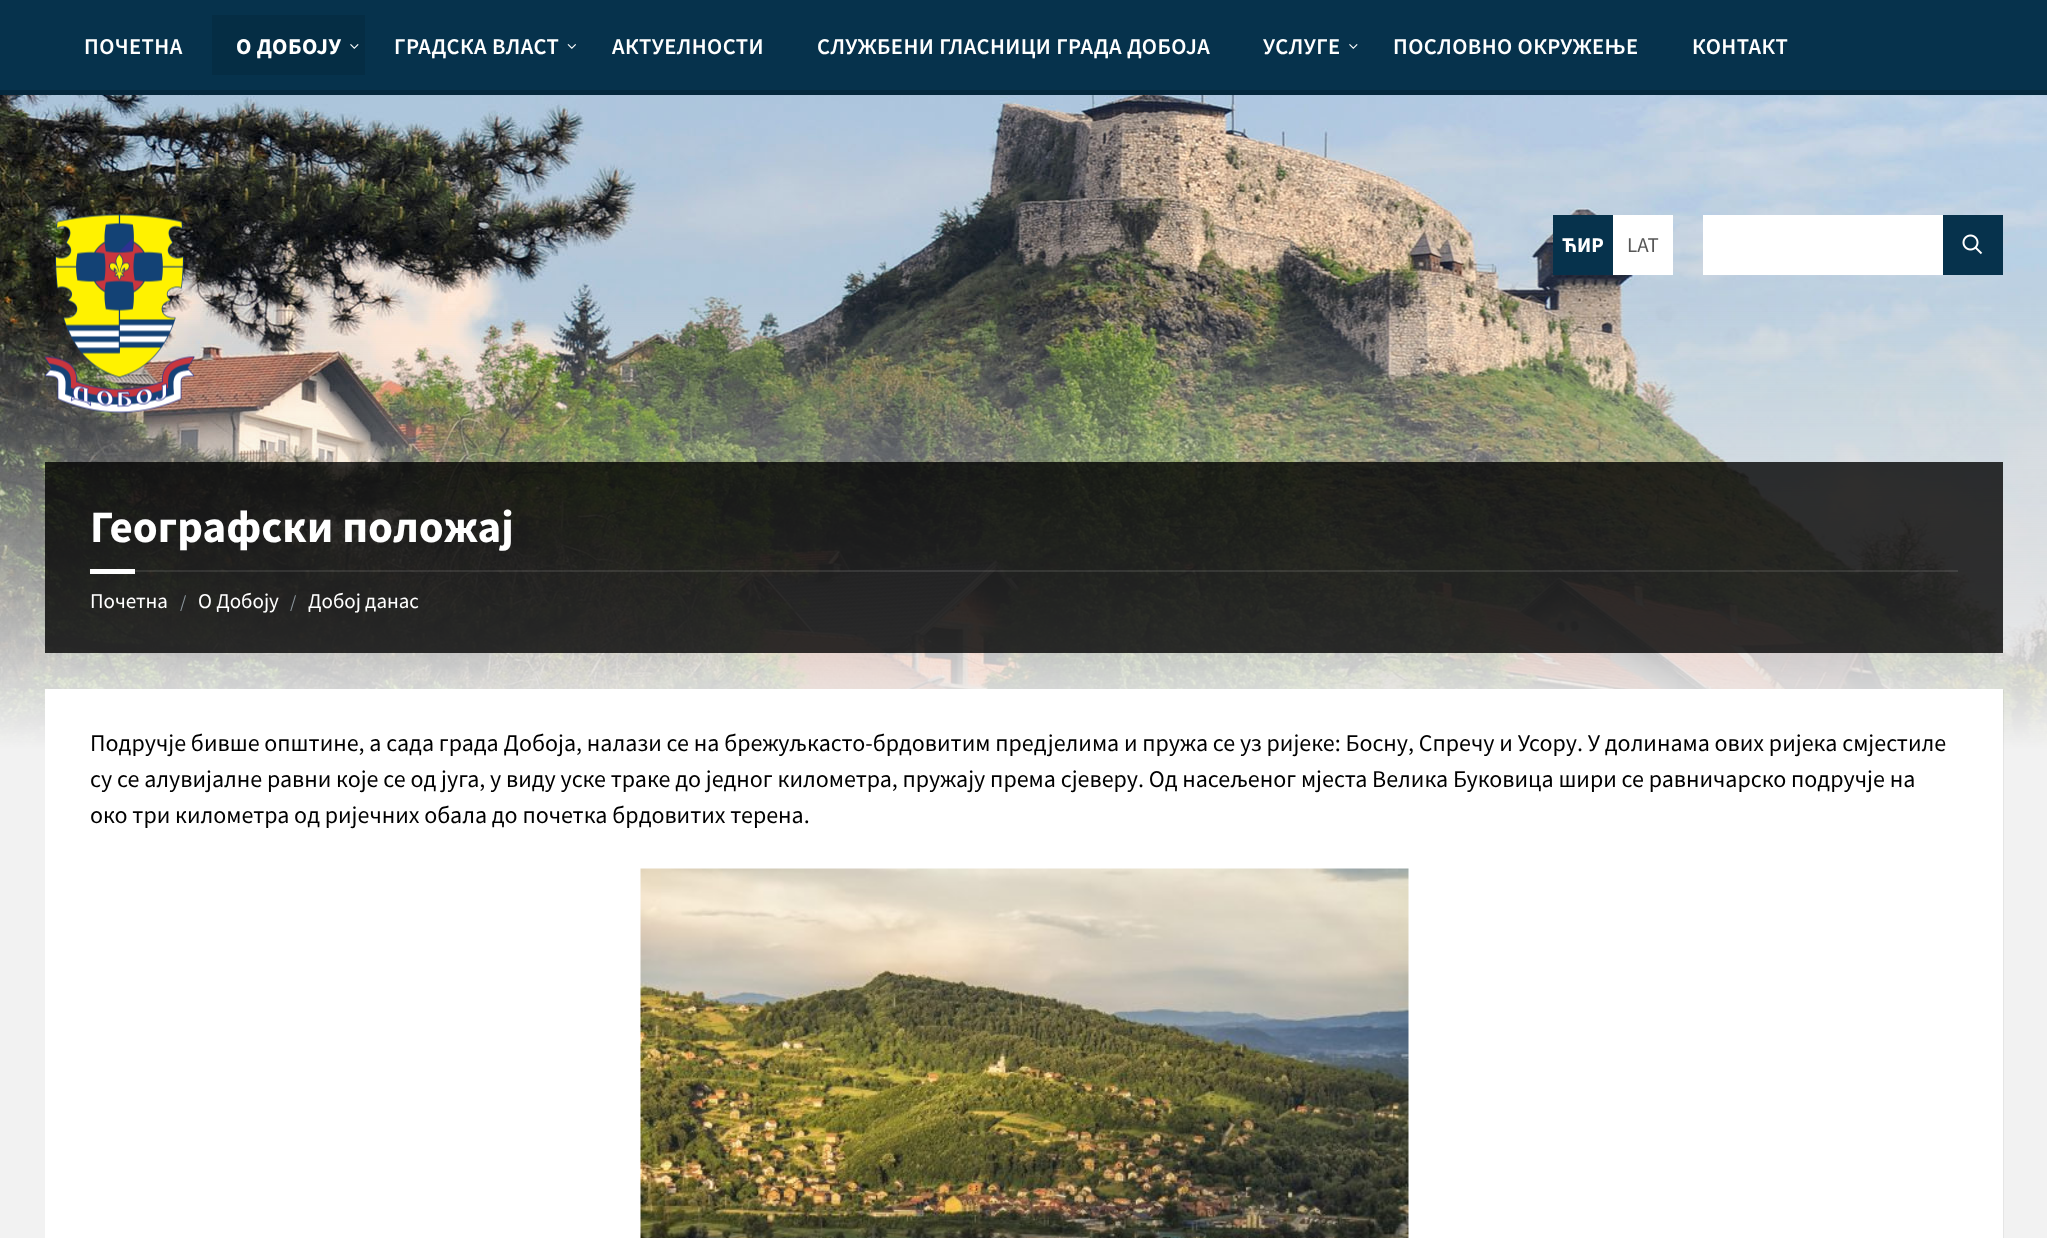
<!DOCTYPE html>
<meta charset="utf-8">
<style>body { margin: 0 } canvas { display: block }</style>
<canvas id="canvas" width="2047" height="1238"></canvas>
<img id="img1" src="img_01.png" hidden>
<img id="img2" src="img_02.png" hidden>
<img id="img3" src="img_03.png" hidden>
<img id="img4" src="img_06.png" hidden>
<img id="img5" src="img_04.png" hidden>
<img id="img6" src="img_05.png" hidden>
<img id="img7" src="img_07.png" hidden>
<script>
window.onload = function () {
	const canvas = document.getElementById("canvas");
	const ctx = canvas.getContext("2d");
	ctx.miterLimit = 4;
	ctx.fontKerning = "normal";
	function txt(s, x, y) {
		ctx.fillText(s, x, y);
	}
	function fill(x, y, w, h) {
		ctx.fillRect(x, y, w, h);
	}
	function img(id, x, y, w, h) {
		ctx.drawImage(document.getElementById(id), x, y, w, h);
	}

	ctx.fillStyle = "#F2F2F2";
	fill(0, 0, 2047, 1238);
	ctx.fillStyle = "#06324C";
	fill(0, 0, 2047, 90);
	ctx.fillStyle = "#05283D";
	fill(0, 90, 2047, 5);
	ctx.fillStyle = "#052D44";
	fill(212, 15, 153, 60);
	img("img1", 350, 44, 9, 5);
	img("img2", 567, 44, 9, 5);
	img("img3", 1349, 44, 9, 5);
	img("img4", 0, 95, 2047, 655);
	img("img5", 45, 214, 150, 199);
	ctx.fillStyle = "#06324C";
	fill(1553, 215, 60, 60);
	ctx.fillStyle = "#FFFFFF";
	fill(1613, 215, 60, 60);
	fill(1703, 215, 240, 60);
	ctx.fillStyle = "#06324C";
	fill(1943, 215, 60, 60);
	img("img6", 1962, 234, 21, 21);
	ctx.fillStyle = "rgba(0, 0, 0, 0.8)";
	fill(45, 462, 1958, 191);
	ctx.fillStyle = "rgba(255, 255, 255, 0.1)";
	fill(135, 570, 1823, 2);
	ctx.fillStyle = "#FFFFFF";
	fill(90, 569, 45, 5);
	ctx.fillStyle = "rgba(0, 0, 0, 0.05)";
	ctx.beginPath();
	ctx.moveTo(47, 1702);
	ctx.lineTo(47, 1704);
	ctx.lineTo(2004, 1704);
	ctx.lineTo(2004, 690);
	ctx.lineTo(2002, 690);
	ctx.lineTo(2002, 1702);
	ctx.closePath();
	ctx.fill();
	ctx.fillStyle = "#FFFFFF";
	fill(45, 689, 1958, 549);
	img("img7", 640, 868, 769, 370);
	ctx.letterSpacing = "0.45px";
	ctx.font = "600 22.5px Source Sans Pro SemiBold";
	txt("ПОЧЕТНА", 84, 54);
	ctx.font = "bold 22.5px Source Sans Pro";
	txt("О ДОБОЈУ", 236, 54);
	ctx.font = "600 22.5px Source Sans Pro SemiBold";
	txt("ГРАДСКА ВЛАСТ", 394, 54);
	txt("АКТУЕЛНОСТИ", 612, 54);
	txt("СЛУЖБЕНИ ГЛАСНИЦИ ГРАДА ДОБОЈА", 817, 54);
	txt("УСЛУГЕ", 1263, 54);
	txt("ПОСЛОВНО ОКРУЖЕЊЕ", 1393, 54);
	txt("КОНТАКТ", 1692, 54);
	ctx.letterSpacing = "0px";
	ctx.font = "bold 21px Source Sans Pro";
	txt("ЋИР", 1562, 252);
	ctx.font = "21px Source Sans Pro";
	ctx.fillStyle = "#565656";
	txt("LAT", 1627, 252);
	ctx.font = "bold 45px Source Sans Pro";
	ctx.fillStyle = "#FFFFFF";
	txt("Географски положај", 90, 542);
	ctx.font = "21px Source Sans Pro";
	txt("Почетна", 90, 608);
	ctx.font = "18px Source Sans Pro";
	ctx.fillStyle = "#8A949B";
	txt("/", 180, 608);
	ctx.font = "21px Source Sans Pro";
	ctx.fillStyle = "#FFFFFF";
	txt("О Добоју", 198, 608);
	ctx.font = "18px Source Sans Pro";
	ctx.fillStyle = "#8A949B";
	txt("/", 290, 608);
	ctx.font = "21px Source Sans Pro";
	ctx.fillStyle = "#FFFFFF";
	txt("Добој данас", 308, 608);
	ctx.font = "24px Source Sans Pro";
	ctx.fillStyle = "#000000";
	txt("Подручје бивше општине, а сада града Добоја, налази се на брежуљкасто-брдовитим предјелима и пружа се уз ријеке: Босну, Спречу и Усору. У долинама ових ријека смјестиле", 90, 751);
	txt("су се алувијалне равни које се од југа, у виду уске траке до једног километра, пружају према сјеверу. Од насељеног мјеста Велика Буковица шири се равничарско подручје на", 90, 787);
	txt("око три километра од ријечних обала до почетка брдовитих терена.", 90, 823);
};
</script>
